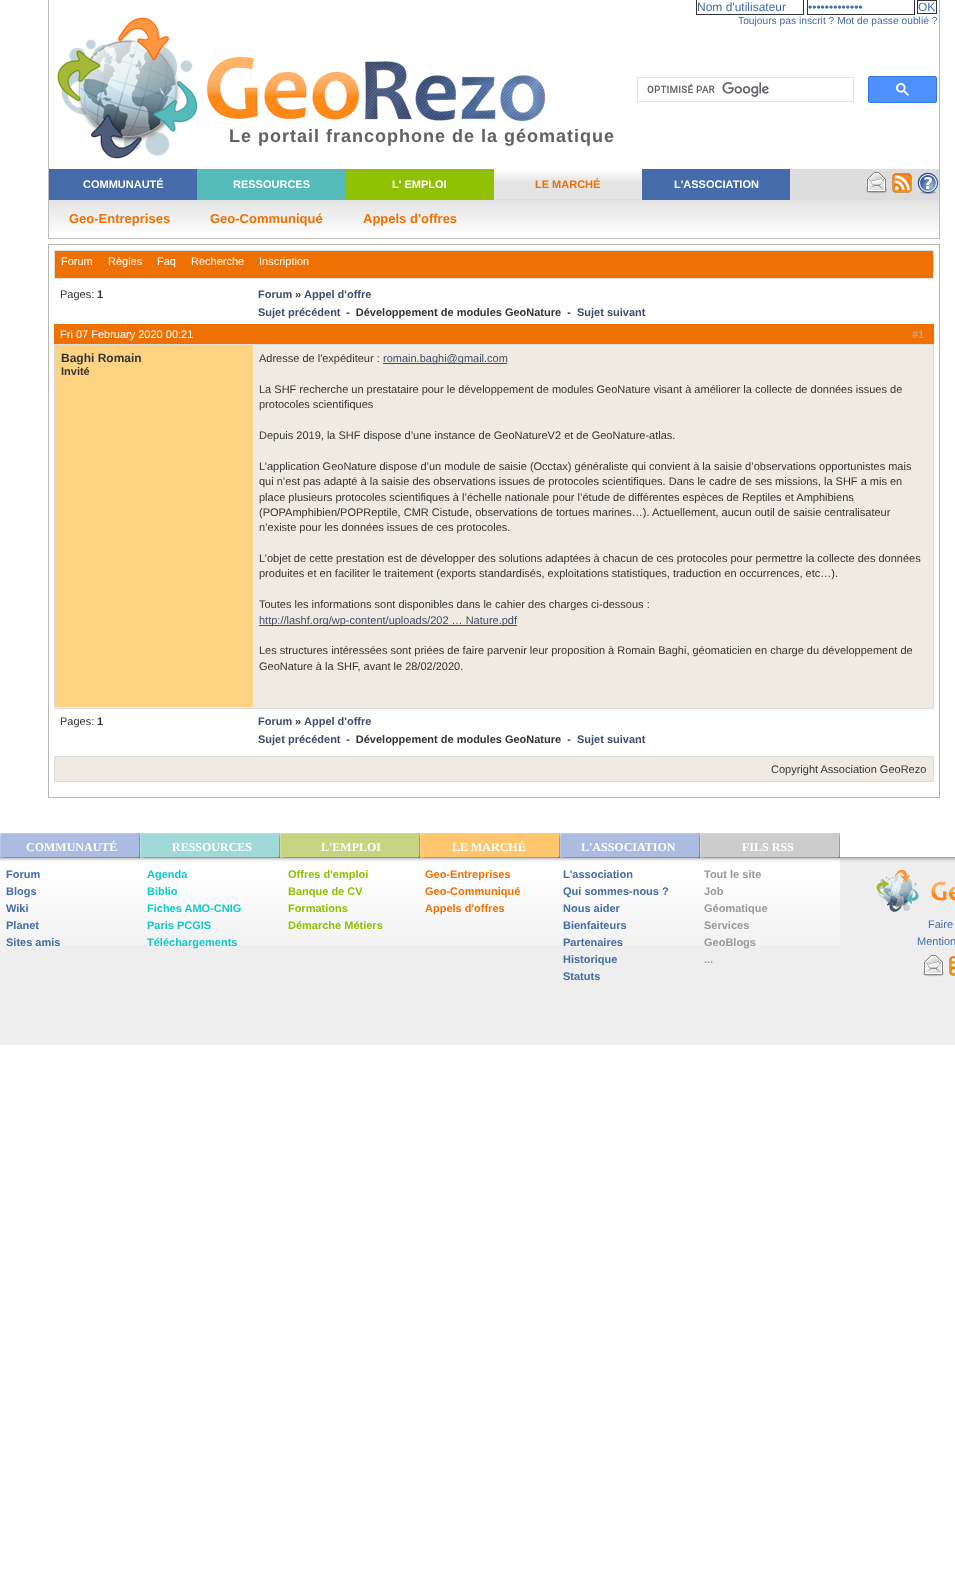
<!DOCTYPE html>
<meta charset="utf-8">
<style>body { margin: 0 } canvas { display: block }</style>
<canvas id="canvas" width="955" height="1576"></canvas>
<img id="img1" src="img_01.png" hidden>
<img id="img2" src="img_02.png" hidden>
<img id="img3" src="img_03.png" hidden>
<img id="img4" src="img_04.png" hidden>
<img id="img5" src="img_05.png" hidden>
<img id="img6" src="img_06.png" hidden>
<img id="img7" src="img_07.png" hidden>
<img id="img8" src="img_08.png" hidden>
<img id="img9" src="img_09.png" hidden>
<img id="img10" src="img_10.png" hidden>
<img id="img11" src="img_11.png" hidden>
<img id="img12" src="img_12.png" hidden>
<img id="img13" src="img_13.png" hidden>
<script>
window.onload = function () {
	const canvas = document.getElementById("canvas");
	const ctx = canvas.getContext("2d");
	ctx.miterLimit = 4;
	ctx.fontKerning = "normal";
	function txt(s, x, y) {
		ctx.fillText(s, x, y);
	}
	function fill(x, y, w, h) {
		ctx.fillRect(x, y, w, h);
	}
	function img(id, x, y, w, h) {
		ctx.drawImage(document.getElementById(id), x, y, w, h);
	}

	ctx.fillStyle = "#FFFFFF";
	fill(0, 0, 955, 1576);
	ctx.fillStyle = "#BBBBBB";
	fill(939, 0, 1, 239);
	fill(48, 238, 892, 1);
	fill(48, 0, 1, 239);
	ctx.strokeStyle = "#333333";
	ctx.strokeRect(696.5, -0.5, 107, 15);
	ctx.strokeRect(807.5, -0.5, 107, 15);
	ctx.strokeRect(917.5, 0.5, 19, 13);
	ctx.strokeStyle = "#DFE1E5";
	ctx.strokeRect(637.5, 77.5, 216, 24);
	img("img1", 647, 82, 122, 15);
	ctx.fillStyle = "#4D90FE";
	ctx.beginPath();
	ctx.roundRect(868.5, 76.5, 68, 26, 1.5);
	ctx.fill();
	ctx.strokeStyle = "#3079ED";
	ctx.stroke();
	img("img2", 896, 83, 13, 13);
	img("img3", 57, 17, 489, 142);
	ctx.fillStyle = "#DDDDDD";
	fill(494, 169, 445, 31);
	ctx.fillStyle = "#456BAA";
	fill(49, 169, 148, 31);
	ctx.fillStyle = "#54BABA";
	fill(197, 169, 148, 31);
	ctx.fillStyle = "#8FC002";
	fill(345, 169, 149, 31);
	img("img4", 494, 169, 148, 30);
	ctx.fillStyle = "#456BAA";
	fill(642, 169, 148, 31);
	img("img5", 866, 172, 21, 22);
	img("img6", 892, 173, 20, 20);
	img("img7", 917, 172, 21, 22);
	img("img8", 49, 200, 890, 32);
	ctx.strokeStyle = "#B7B6B6";
	ctx.strokeRect(48.5, 244.5, 891, 553);
	ctx.strokeStyle = "#DDDDDD";
	ctx.strokeRect(54.5, 250.5, 879, 28);
	ctx.fillStyle = "#EF7103";
	fill(55, 251, 878, 27);
	fill(54, 324, 880, 20);
	ctx.fillStyle = "#F0EBE2";
	ctx.beginPath();
	ctx.rect(54.5, 344.5, 879, 364);
	ctx.fill();
	ctx.stroke();
	ctx.fillStyle = "#FED483";
	fill(55, 345, 198, 362);
	ctx.fillStyle = "#3F4C6B";
	fill(383, 363, 124, 1);
	fill(259, 625, 258, 1);
	ctx.fillStyle = "#F0EBE2";
	ctx.beginPath();
	ctx.rect(54.5, 756.5, 879, 25);
	ctx.fill();
	ctx.stroke();
	img("img9", 0, 857, 955, 188);
	img("img10", 0, 833, 840, 112);
	img("img11", 876, 870, 79, 42);
	img("img12", 923, 955, 21, 22);
	img("img13", 949, 956, 6, 20);
	ctx.font = "12px Liberation Sans";
	ctx.fillStyle = "#456BAA";
	txt("Nom d'utilisateur", 697, 11);
	txt("•••••••••••••", 808, 11);
	txt("OK", 918, 11);
	ctx.font = "10.25px Liberation Sans";
	txt("Toujours pas inscrit ? Mot de passe oublié ?", 738, 24);
	ctx.letterSpacing = "1px";
	ctx.font = "bold 18px Liberation Sans";
	ctx.fillStyle = "#616161";
	txt("Le portail francophone de la géomatique", 229, 142);
	ctx.letterSpacing = "0px";
	ctx.font = "bold 11px Liberation Sans";
	ctx.fillStyle = "#FFFFFF";
	txt("COMMUNAUTÉ", 83, 188);
	txt("RESSOURCES", 233, 188);
	txt("L' EMPLOI", 392, 188);
	ctx.fillStyle = "#EF7103";
	txt("LE MARCHÉ", 535, 188);
	ctx.fillStyle = "#FFFFFF";
	txt("L'ASSOCIATION", 674, 188);
	ctx.font = "bold 13px Liberation Sans";
	ctx.fillStyle = "#EF7103";
	txt("Geo-Entreprises", 69, 223);
	txt("Geo-Communiqué", 210, 223);
	txt("Appels d'offres", 363, 223);
	ctx.font = "11px Liberation Sans";
	ctx.fillStyle = "#FFFFFF";
	txt("Forum", 61, 265);
	txt("Règles", 108, 265);
	txt("Faq", 157, 265);
	txt("Recherche", 191, 265);
	txt("Inscription", 259, 265);
	ctx.fillStyle = "#333333";
	txt("Pages:", 60, 298);
	ctx.font = "bold 11px Liberation Sans";
	txt("1", 97, 298);
	ctx.fillStyle = "#3F4C6B";
	txt("Forum", 258, 298);
	ctx.fillStyle = "#333333";
	txt("»", 295, 298);
	ctx.fillStyle = "#3F4C6B";
	txt("Appel d'offre", 304, 298);
	txt("Sujet précédent", 258, 316);
	ctx.fillStyle = "#333333";
	txt("-  Développement de modules GeoNature  -", 346, 316);
	ctx.fillStyle = "#3F4C6B";
	txt("Sujet suivant", 577, 316);
	ctx.font = "11px Liberation Sans";
	ctx.fillStyle = "#FFFFFF";
	txt("Fri 07 February 2020 00:21", 60, 338);
	ctx.fillStyle = "#AABDCD";
	txt("#1", 912, 338);
	ctx.font = "bold 12px Liberation Sans";
	ctx.fillStyle = "#333333";
	txt("Baghi Romain", 61, 362);
	ctx.font = "bold 11px Liberation Sans";
	txt("Invité", 61, 375);
	ctx.font = "11px Liberation Sans";
	txt("Adresse de l'expéditeur :", 259, 362);
	ctx.fillStyle = "#3F4C6B";
	txt("romain.baghi@gmail.com", 383, 362);
	ctx.fillStyle = "#333333";
	txt("La SHF recherche un prestataire pour le développement de modules GeoNature visant à améliorer la collecte de données issues de", 259, 393);
	txt("protocoles scientifiques", 259, 408);
	txt("Depuis 2019, la SHF dispose d’une instance de GeoNatureV2 et de GeoNature-atlas.", 259, 439);
	txt("L’application GeoNature dispose d’un module de saisie (Occtax) généraliste qui convient à la saisie d’observations opportunistes mais", 259, 470);
	txt("qui n’est pas adapté à la saisie des observations issues de protocoles scientifiques. Dans le cadre de ses missions, la SHF a mis en", 259, 485);
	txt("place plusieurs protocoles scientifiques à l’échelle nationale pour l’étude de différentes espèces de Reptiles et Amphibiens", 259, 501);
	txt("(POPAmphibien/POPReptile, CMR Cistude, observations de tortues marines…). Actuellement, aucun outil de saisie centralisateur", 259, 516);
	txt("n’existe pour les données issues de ces protocoles.", 259, 531);
	txt("L’objet de cette prestation est de développer des solutions adaptées à chacun de ces protocoles pour permettre la collecte des données", 259, 562);
	txt("produites et en faciliter le traitement (exports standardisés, exploitations statistiques, traduction en occurrences, etc…).", 259, 577);
	txt("Toutes les informations sont disponibles dans le cahier des charges ci-dessous :", 259, 608);
	ctx.fillStyle = "#3F4C6B";
	txt("http://lashf.org/wp-content/uploads/202 … Nature.pdf", 259, 624);
	ctx.fillStyle = "#333333";
	txt("Les structures intéressées sont priées de faire parvenir leur proposition à Romain Baghi, géomaticien en charge du développement de", 259, 654);
	txt("GeoNature à la SHF, avant le 28/02/2020.", 259, 670);
	txt("Pages:", 60, 725);
	ctx.font = "bold 11px Liberation Sans";
	txt("1", 97, 725);
	ctx.fillStyle = "#3F4C6B";
	txt("Forum", 258, 725);
	ctx.fillStyle = "#333333";
	txt("»", 295, 725);
	ctx.fillStyle = "#3F4C6B";
	txt("Appel d'offre", 304, 725);
	txt("Sujet précédent", 258, 743);
	ctx.fillStyle = "#333333";
	txt("-  Développement de modules GeoNature  -", 346, 743);
	ctx.fillStyle = "#3F4C6B";
	txt("Sujet suivant", 577, 743);
	ctx.font = "11px Liberation Sans";
	ctx.fillStyle = "#333333";
	txt("Copyright Association GeoRezo", 771, 773);
	ctx.font = "bold 12px Liberation Serif";
	ctx.fillStyle = "#FFFFFF";
	txt("COMMUNAUTÉ", 26, 851);
	txt("RESSOURCES", 172, 851);
	txt("L'EMPLOI", 321, 851);
	txt("LE MARCHÉ", 452, 851);
	txt("L'ASSOCIATION", 581, 851);
	txt("FILS RSS", 742, 851);
	ctx.font = "bold 11px Liberation Sans";
	ctx.fillStyle = "#456BAA";
	txt("Forum", 6, 878);
	txt("Blogs", 6, 895);
	txt("Wiki", 6, 912);
	txt("Planet", 6, 929);
	txt("Sites amis", 6, 946);
	ctx.fillStyle = "#13C8CA";
	txt("Agenda", 147, 878);
	txt("Biblio", 147, 895);
	txt("Fiches AMO-CNIG", 147, 912);
	txt("Paris PCGIS", 147, 929);
	txt("Téléchargements", 147, 946);
	ctx.fillStyle = "#8FC002";
	txt("Offres d'emploi", 288, 878);
	txt("Banque de CV", 288, 895);
	txt("Formations", 288, 912);
	txt("Démarche Métiers", 288, 929);
	ctx.fillStyle = "#EF7103";
	txt("Geo-Entreprises", 425, 878);
	txt("Geo-Communiqué", 425, 895);
	txt("Appels d'offres", 425, 912);
	ctx.fillStyle = "#456BAA";
	txt("L'association", 563, 878);
	txt("Qui sommes-nous ?", 563, 895);
	txt("Nous aider", 563, 912);
	txt("Bienfaiteurs", 563, 929);
	txt("Partenaires", 563, 946);
	txt("Historique", 563, 963);
	txt("Statuts", 563, 980);
	ctx.fillStyle = "#999999";
	txt("Tout le site", 704, 878);
	txt("Job", 704, 895);
	txt("Géomatique", 704, 912);
	txt("Services", 704, 929);
	txt("GeoBlogs", 704, 946);
	txt("...", 704, 963);
	ctx.font = "11px Liberation Sans";
	ctx.fillStyle = "#456BAA";
	txt("Faire", 928, 928);
	txt("Mention", 917, 945);
};
</script>
